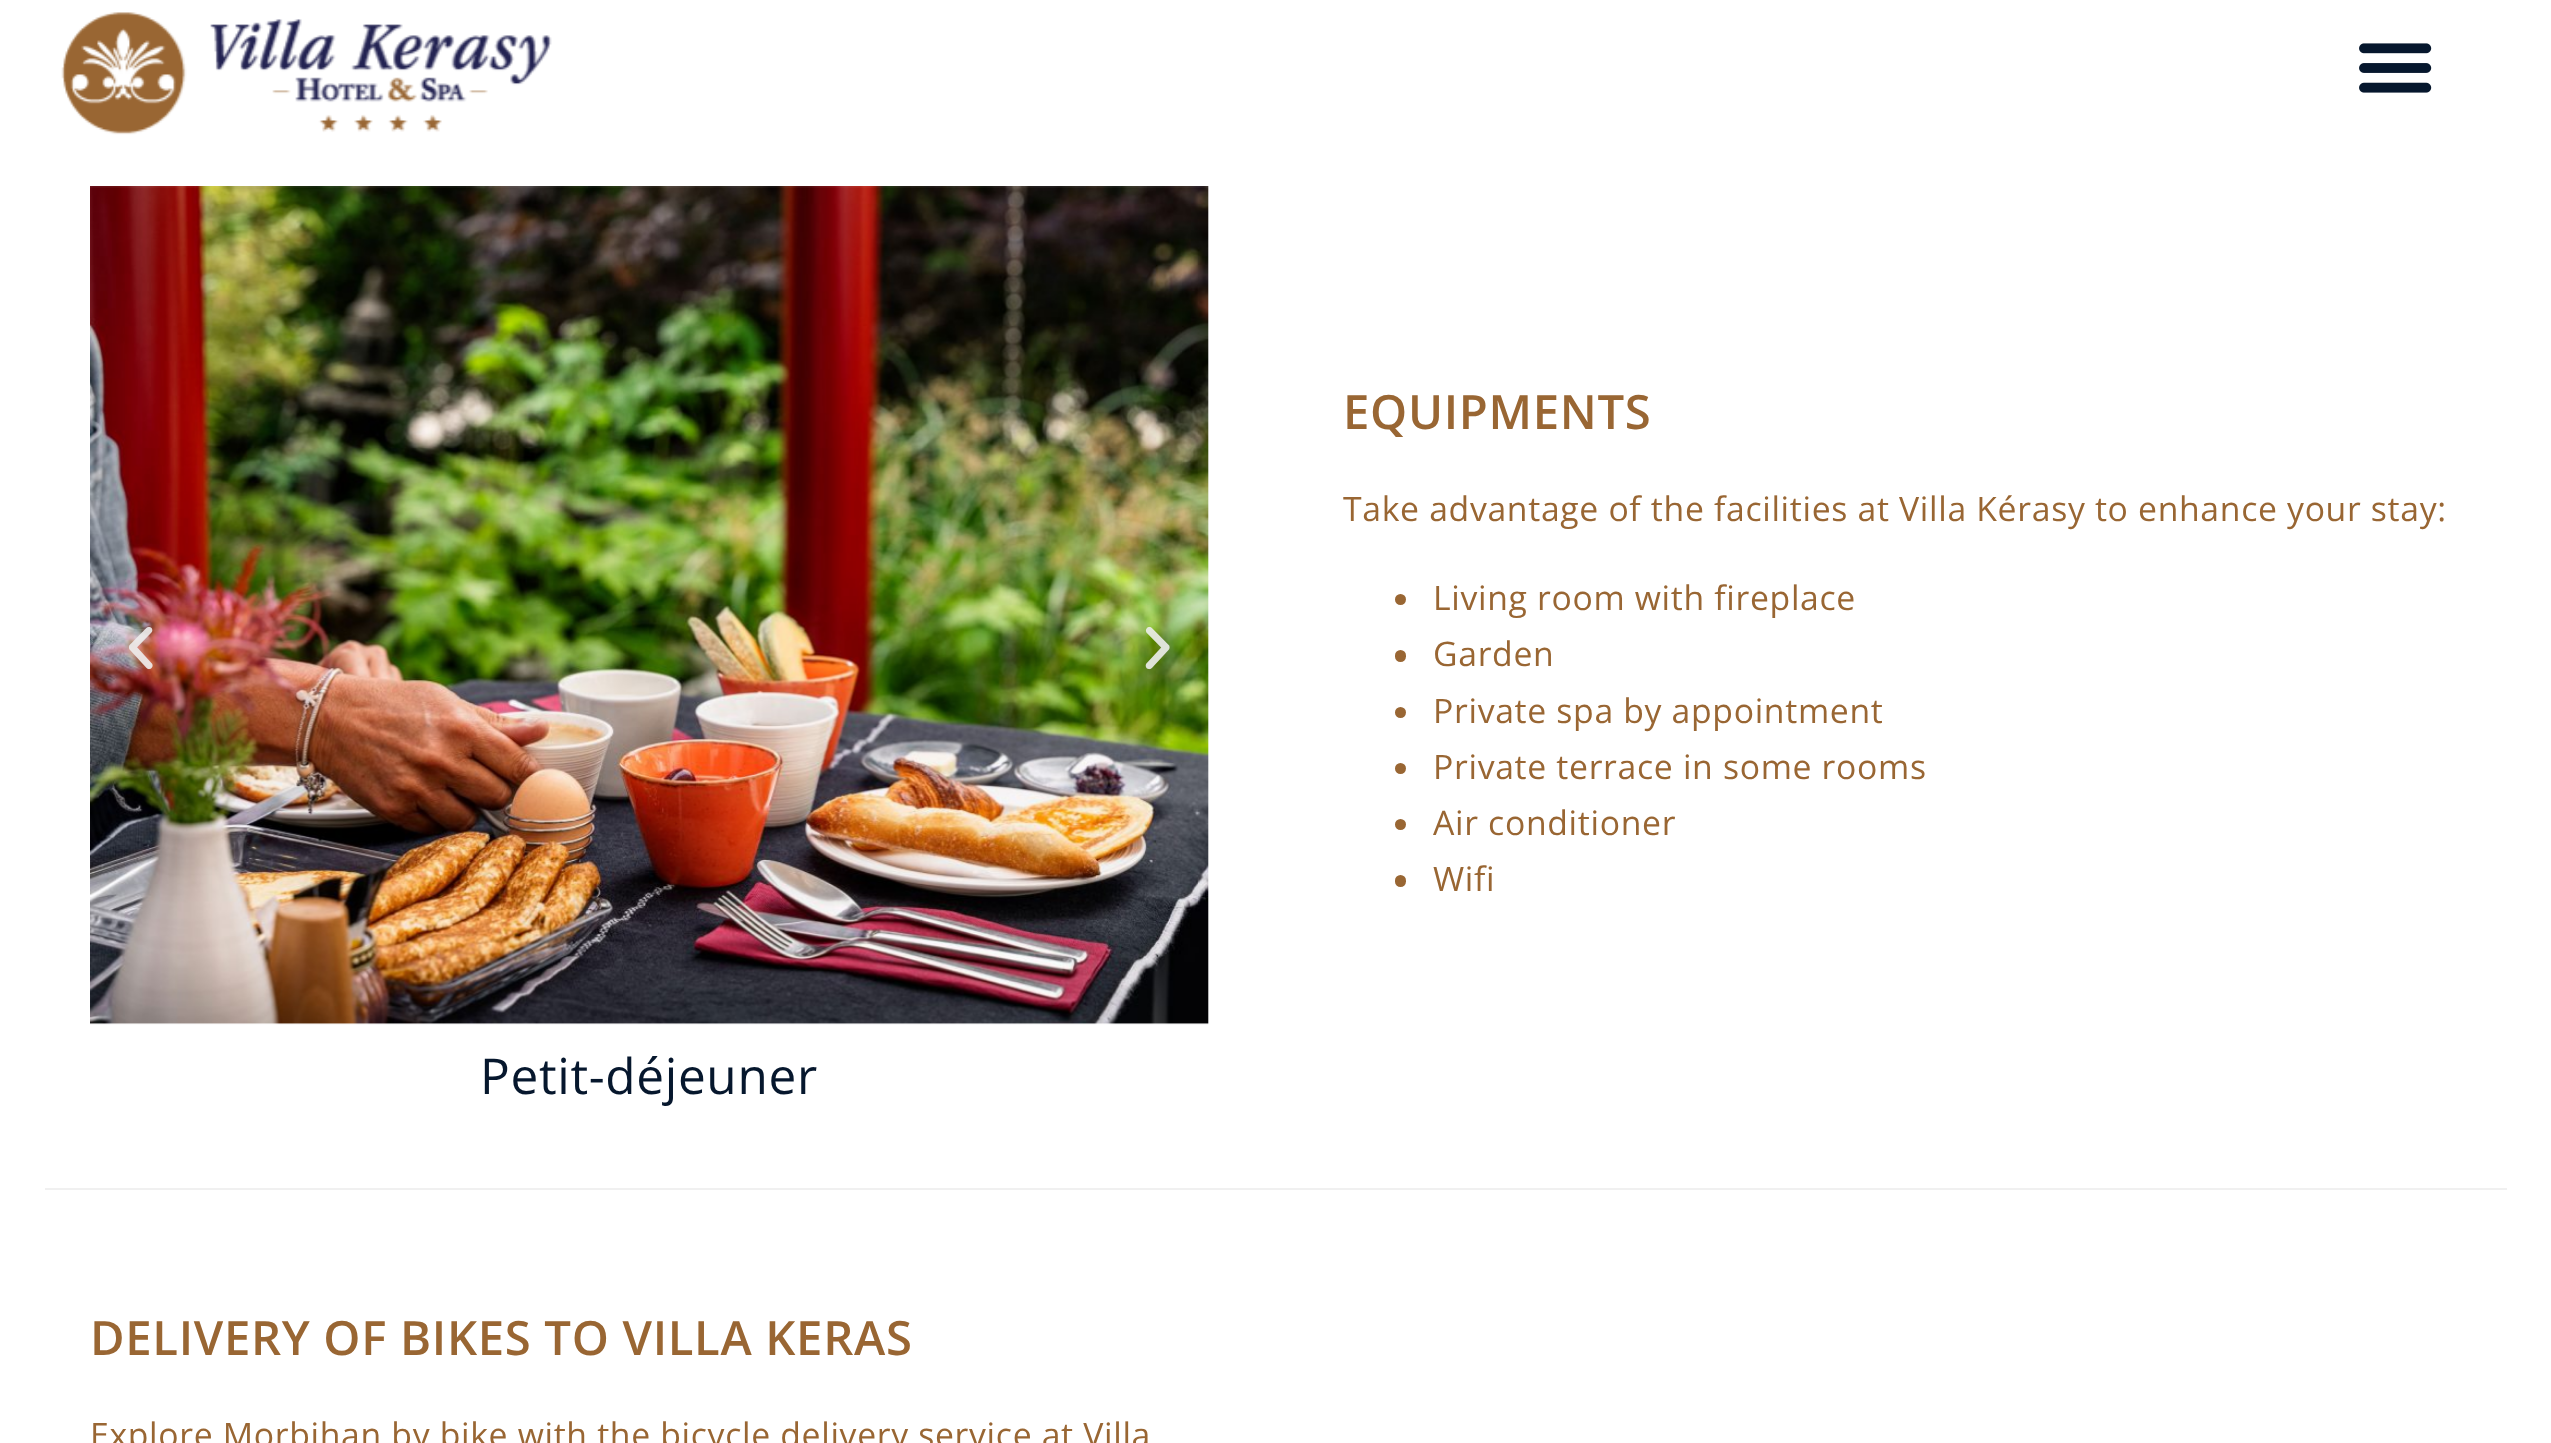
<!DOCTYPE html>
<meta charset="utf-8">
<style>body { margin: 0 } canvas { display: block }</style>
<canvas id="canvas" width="2551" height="1443"></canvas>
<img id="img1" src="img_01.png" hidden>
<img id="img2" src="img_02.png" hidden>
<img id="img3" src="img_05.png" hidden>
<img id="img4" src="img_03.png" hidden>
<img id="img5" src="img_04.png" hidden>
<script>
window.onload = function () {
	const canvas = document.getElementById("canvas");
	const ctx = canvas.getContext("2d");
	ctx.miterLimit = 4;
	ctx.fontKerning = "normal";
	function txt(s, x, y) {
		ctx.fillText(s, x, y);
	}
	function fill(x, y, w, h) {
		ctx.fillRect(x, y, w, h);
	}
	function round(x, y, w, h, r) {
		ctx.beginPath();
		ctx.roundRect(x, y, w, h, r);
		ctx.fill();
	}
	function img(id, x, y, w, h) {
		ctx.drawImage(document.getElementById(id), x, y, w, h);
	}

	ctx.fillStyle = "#FFFFFF";
	fill(0, 0, 2551, 1443);
	img("img1", 61, 12, 491, 123);
	img("img2", 2359, 43, 73, 50);
	ctx.fillStyle = "#996633";
	ctx.beginPath();
	ctx.arc(1400.5, 599.5, 5.5, 0, Math.PI * 2);
	ctx.fill();
	round(1395, 650, 11, 12, 5.5);
	ctx.beginPath();
	ctx.arc(1400.5, 712.5, 5.5, 0, Math.PI * 2);
	ctx.fill();
	ctx.beginPath();
	ctx.arc(1400.5, 768.5, 5.5, 0, Math.PI * 2);
	ctx.fill();
	ctx.beginPath();
	ctx.arc(1400.5, 824.5, 5.5, 0, Math.PI * 2);
	ctx.fill();
	round(1395, 875, 11, 12, 5.5);
	img("img3", 90, 186, 1119, 839);
	img("img4", 129, 627, 24, 43);
	img("img5", 1145, 626, 25, 44);
	ctx.fillStyle = "#F0F0F0";
	fill(45, 1188, 2462, 2);
	ctx.letterSpacing = "0.67px";
	ctx.font = "600 47.25px Open Sans";
	ctx.fillStyle = "#996633";
	txt("EQUIPMENTS", 1343, 429);
	ctx.font = "33.75px Open Sans";
	txt("Take advantage of the facilities at Villa Kérasy to enhance your stay:", 1343, 521);
	txt("Living room with fireplace", 1433, 610);
	txt("Garden", 1433, 666);
	txt("Private spa by appointment", 1433, 723);
	txt("Private terrace in some rooms", 1433, 779);
	txt("Air conditioner", 1433, 835);
	txt("Wifi", 1433, 891);
	ctx.font = "49.5px Open Sans";
	ctx.fillStyle = "#06172D";
	txt("Petit-déjeuner", 480, 1094);
	ctx.font = "600 47.25px Open Sans";
	ctx.fillStyle = "#996633";
	txt("DELIVERY OF BIKES TO VILLA KERAS", 90, 1355);
	ctx.font = "33.75px Open Sans";
	txt("Explore Morbihan by bike with the bicycle delivery service at Villa", 90, 1447);
};
</script>
